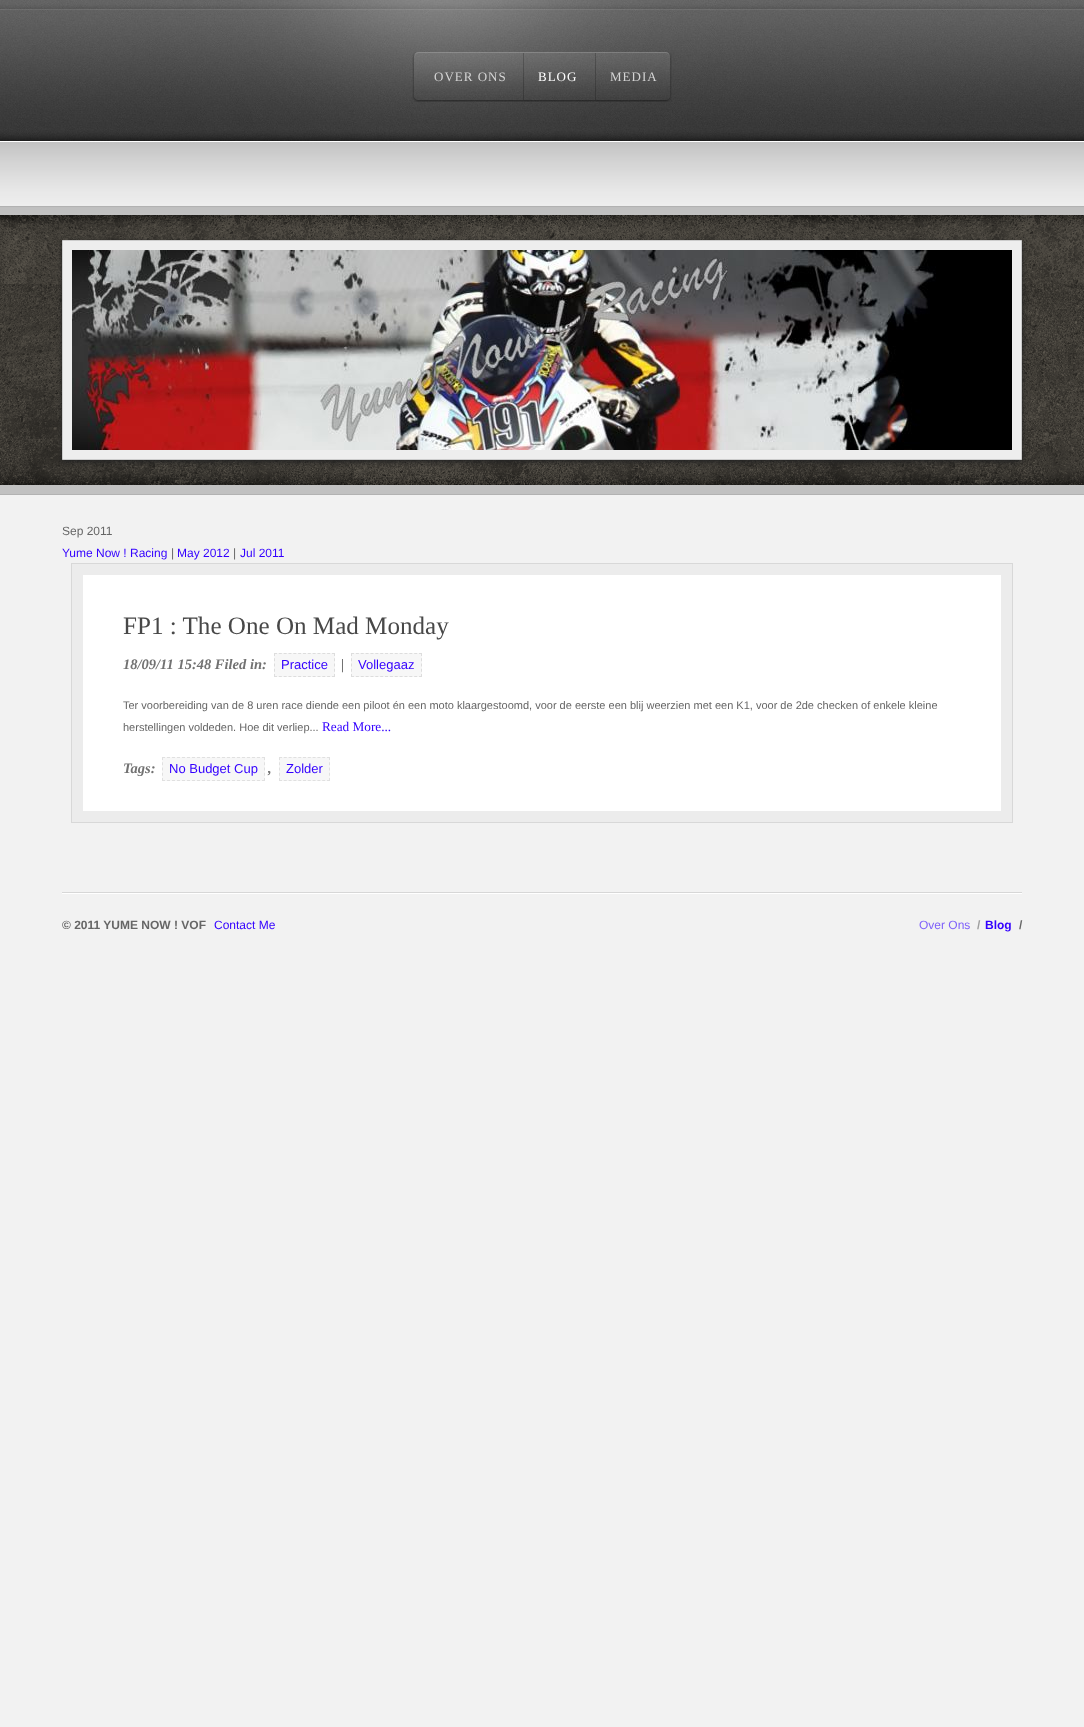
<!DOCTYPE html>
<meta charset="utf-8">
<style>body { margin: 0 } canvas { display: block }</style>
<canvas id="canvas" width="1084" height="1727"></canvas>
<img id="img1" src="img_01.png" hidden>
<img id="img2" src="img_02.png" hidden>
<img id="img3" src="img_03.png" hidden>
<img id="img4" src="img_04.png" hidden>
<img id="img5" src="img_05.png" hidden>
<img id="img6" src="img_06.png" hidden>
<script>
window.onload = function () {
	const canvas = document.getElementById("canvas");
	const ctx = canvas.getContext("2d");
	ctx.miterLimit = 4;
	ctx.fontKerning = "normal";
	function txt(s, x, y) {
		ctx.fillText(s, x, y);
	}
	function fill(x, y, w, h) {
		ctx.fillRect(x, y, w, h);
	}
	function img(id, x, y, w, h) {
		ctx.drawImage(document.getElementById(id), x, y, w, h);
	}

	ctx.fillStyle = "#F2F2F2";
	fill(0, 0, 1084, 1727);
	img("img1", 0, 0, 1084, 215);
	img("img2", 142, 0, 800, 141);
	img("img3", 412, 52, 6, 50);
	img("img4", 418, 52, 254, 50);
	ctx.fillStyle = "rgba(0, 0, 0, 0.2)";
	fill(523, 53, 1, 47);
	fill(595, 53, 1, 47);
	ctx.fillStyle = "#736D62";
	fill(0, 215, 1084, 270);
	img("img5", 0, 215, 1084, 279);
	ctx.fillStyle = "#B2B2B2";
	fill(0, 494, 1084, 1);
	ctx.fillStyle = "#222222";
	ctx.filter = "blur(2.5px)";
	ctx.beginPath();
	ctx.rect(62, 242, 960, 220);
	ctx.fill();
	ctx.filter = "none";
	ctx.fillStyle = "#EEEEEE";
	ctx.beginPath();
	ctx.rect(62.5, 240.5, 959, 219);
	ctx.fill();
	ctx.strokeStyle = "#CCCCCC";
	ctx.stroke();
	img("img6", 72, 250, 940, 200);
	ctx.fillStyle = "#FFFFFF";
	ctx.beginPath();
	ctx.rect(77.5, 569.5, 929, 247);
	ctx.fill();
	ctx.strokeStyle = "#ECECEC";
	ctx.lineWidth = 11;
	ctx.stroke();
	ctx.fillStyle = "#F7F7F7";
	fill(274, 653, 61, 24);
	ctx.beginPath();
	ctx.moveTo(274, 653.5);
	ctx.lineTo(335, 653.5);
	ctx.strokeStyle = "#DDDDDD";
	ctx.lineWidth = 1;
	ctx.setLineDash([3, 1.83]);
	ctx.stroke();
	ctx.beginPath();
	ctx.moveTo(334.5, 653);
	ctx.lineTo(334.5, 677);
	ctx.setLineDash([3, 2.25]);
	ctx.stroke();
	ctx.beginPath();
	ctx.moveTo(274, 676.5);
	ctx.lineTo(335, 676.5);
	ctx.setLineDash([3, 1.83]);
	ctx.stroke();
	ctx.beginPath();
	ctx.moveTo(274.5, 653);
	ctx.lineTo(274.5, 677);
	ctx.setLineDash([3, 2.25]);
	ctx.stroke();
	fill(351, 653, 71, 24);
	ctx.beginPath();
	ctx.moveTo(351, 653.5);
	ctx.lineTo(422, 653.5);
	ctx.setLineDash([3, 1.86]);
	ctx.stroke();
	ctx.beginPath();
	ctx.moveTo(421.5, 653);
	ctx.lineTo(421.5, 677);
	ctx.setLineDash([3, 2.25]);
	ctx.stroke();
	ctx.beginPath();
	ctx.moveTo(351, 676.5);
	ctx.lineTo(422, 676.5);
	ctx.setLineDash([3, 1.86]);
	ctx.stroke();
	ctx.beginPath();
	ctx.moveTo(351.5, 653);
	ctx.lineTo(351.5, 677);
	ctx.setLineDash([3, 2.25]);
	ctx.stroke();
	ctx.strokeStyle = "#D8D8D8";
	ctx.setLineDash([]);
	ctx.strokeRect(71.5, 563.5, 941, 259);
	fill(162, 757, 103, 24);
	ctx.beginPath();
	ctx.moveTo(162, 757.5);
	ctx.lineTo(265, 757.5);
	ctx.strokeStyle = "#E0E0E0";
	ctx.setLineDash([3, 2]);
	ctx.stroke();
	ctx.beginPath();
	ctx.moveTo(264.5, 757);
	ctx.lineTo(264.5, 781);
	ctx.setLineDash([3, 2.25]);
	ctx.stroke();
	ctx.beginPath();
	ctx.moveTo(162, 780.5);
	ctx.lineTo(265, 780.5);
	ctx.setLineDash([3, 2]);
	ctx.stroke();
	ctx.beginPath();
	ctx.moveTo(162.5, 757);
	ctx.lineTo(162.5, 781);
	ctx.setLineDash([3, 2.25]);
	ctx.stroke();
	fill(279, 757, 51, 24);
	ctx.beginPath();
	ctx.moveTo(279, 757.5);
	ctx.lineTo(330, 757.5);
	ctx.setLineDash([3, 1.8]);
	ctx.stroke();
	ctx.beginPath();
	ctx.moveTo(329.5, 757);
	ctx.lineTo(329.5, 781);
	ctx.setLineDash([3, 2.25]);
	ctx.stroke();
	ctx.beginPath();
	ctx.moveTo(279, 780.5);
	ctx.lineTo(330, 780.5);
	ctx.setLineDash([3, 1.8]);
	ctx.stroke();
	ctx.beginPath();
	ctx.moveTo(279.5, 757);
	ctx.lineTo(279.5, 781);
	ctx.setLineDash([3, 2.25]);
	ctx.stroke();
	ctx.fillStyle = "#D7D7D7";
	fill(62, 892, 960, 1);
	ctx.fillStyle = "#FFFFFF";
	fill(62, 893, 960, 1);
	ctx.letterSpacing = "1px";
	ctx.font = "13px Liberation Serif";
	ctx.fillStyle = "#D4D4D4";
	txt("OVER ONS", 434, 81);
	ctx.fillStyle = "#FFFFFF";
	txt("BLOG", 538, 81);
	ctx.fillStyle = "#D4D4D4";
	txt("MEDIA", 610, 81);
	ctx.letterSpacing = "0px";
	ctx.font = "12px Liberation Sans";
	ctx.fillStyle = "#666666";
	txt("Sep 2011", 62, 535);
	ctx.fillStyle = "#3300FF";
	txt("Yume Now ! Racing", 62, 557);
	ctx.fillStyle = "#666666";
	txt("|", 171, 557);
	ctx.fillStyle = "#3300FF";
	txt("May 2012", 177, 557);
	ctx.fillStyle = "#666666";
	txt("|", 233, 557);
	ctx.fillStyle = "#3300FF";
	txt("Jul 2011", 240, 557);
	ctx.font = "25.1px Liberation Serif";
	ctx.fillStyle = "#484848";
	txt("FP1 : The One On Mad Monday", 123, 634);
	ctx.font = "italic bold 14.5px Liberation Serif";
	ctx.fillStyle = "#727272";
	txt("18/09/11 15:48 Filed in:", 123, 669);
	ctx.font = "13px Liberation Sans";
	ctx.fillStyle = "#3300FF";
	txt("Practice", 281, 669);
	ctx.font = "italic bold 14.5px Liberation Serif";
	ctx.fillStyle = "#727272";
	txt("|", 341, 669);
	ctx.font = "13px Liberation Sans";
	ctx.fillStyle = "#3300FF";
	txt("Vollegaaz", 358, 669);
	ctx.font = "11px Liberation Sans";
	ctx.fillStyle = "#666666";
	txt("Ter voorbereiding van de 8 uren race diende een piloot én een moto klaargestoomd, voor de eerste een blij weerzien met een K1, voor de 2de checken of enkele kleine", 123, 709);
	txt("herstellingen voldeden. Hoe dit verliep...", 123, 731);
	ctx.font = "13.25px Liberation Serif";
	ctx.fillStyle = "#3300FF";
	txt("Read More...", 322, 731);
	ctx.font = "italic bold 14.5px Liberation Serif";
	ctx.fillStyle = "#727272";
	txt("Tags:", 123, 773);
	ctx.font = "13px Liberation Sans";
	ctx.fillStyle = "#3300FF";
	txt("No Budget Cup", 169, 773);
	ctx.font = "italic bold 14.5px Liberation Serif";
	ctx.fillStyle = "#727272";
	txt(",", 268, 773);
	ctx.font = "13px Liberation Sans";
	ctx.fillStyle = "#3300FF";
	txt("Zolder", 286, 773);
	ctx.font = "bold 12px Liberation Sans";
	ctx.fillStyle = "#666666";
	txt("© 2011 YUME NOW ! VOF", 62, 929);
	ctx.font = "12px Liberation Sans";
	ctx.fillStyle = "#3300FF";
	txt("Contact Me", 214, 929);
	ctx.fillStyle = "#7F61FA";
	txt("Over Ons", 919, 929);
	ctx.font = "bold 12px Liberation Sans";
	ctx.fillStyle = "#9E9E9E";
	txt("/", 977, 929);
	ctx.fillStyle = "#3300FF";
	txt("Blog", 985, 929);
	ctx.fillStyle = "#666666";
	txt("/", 1019, 929);
};
</script>
